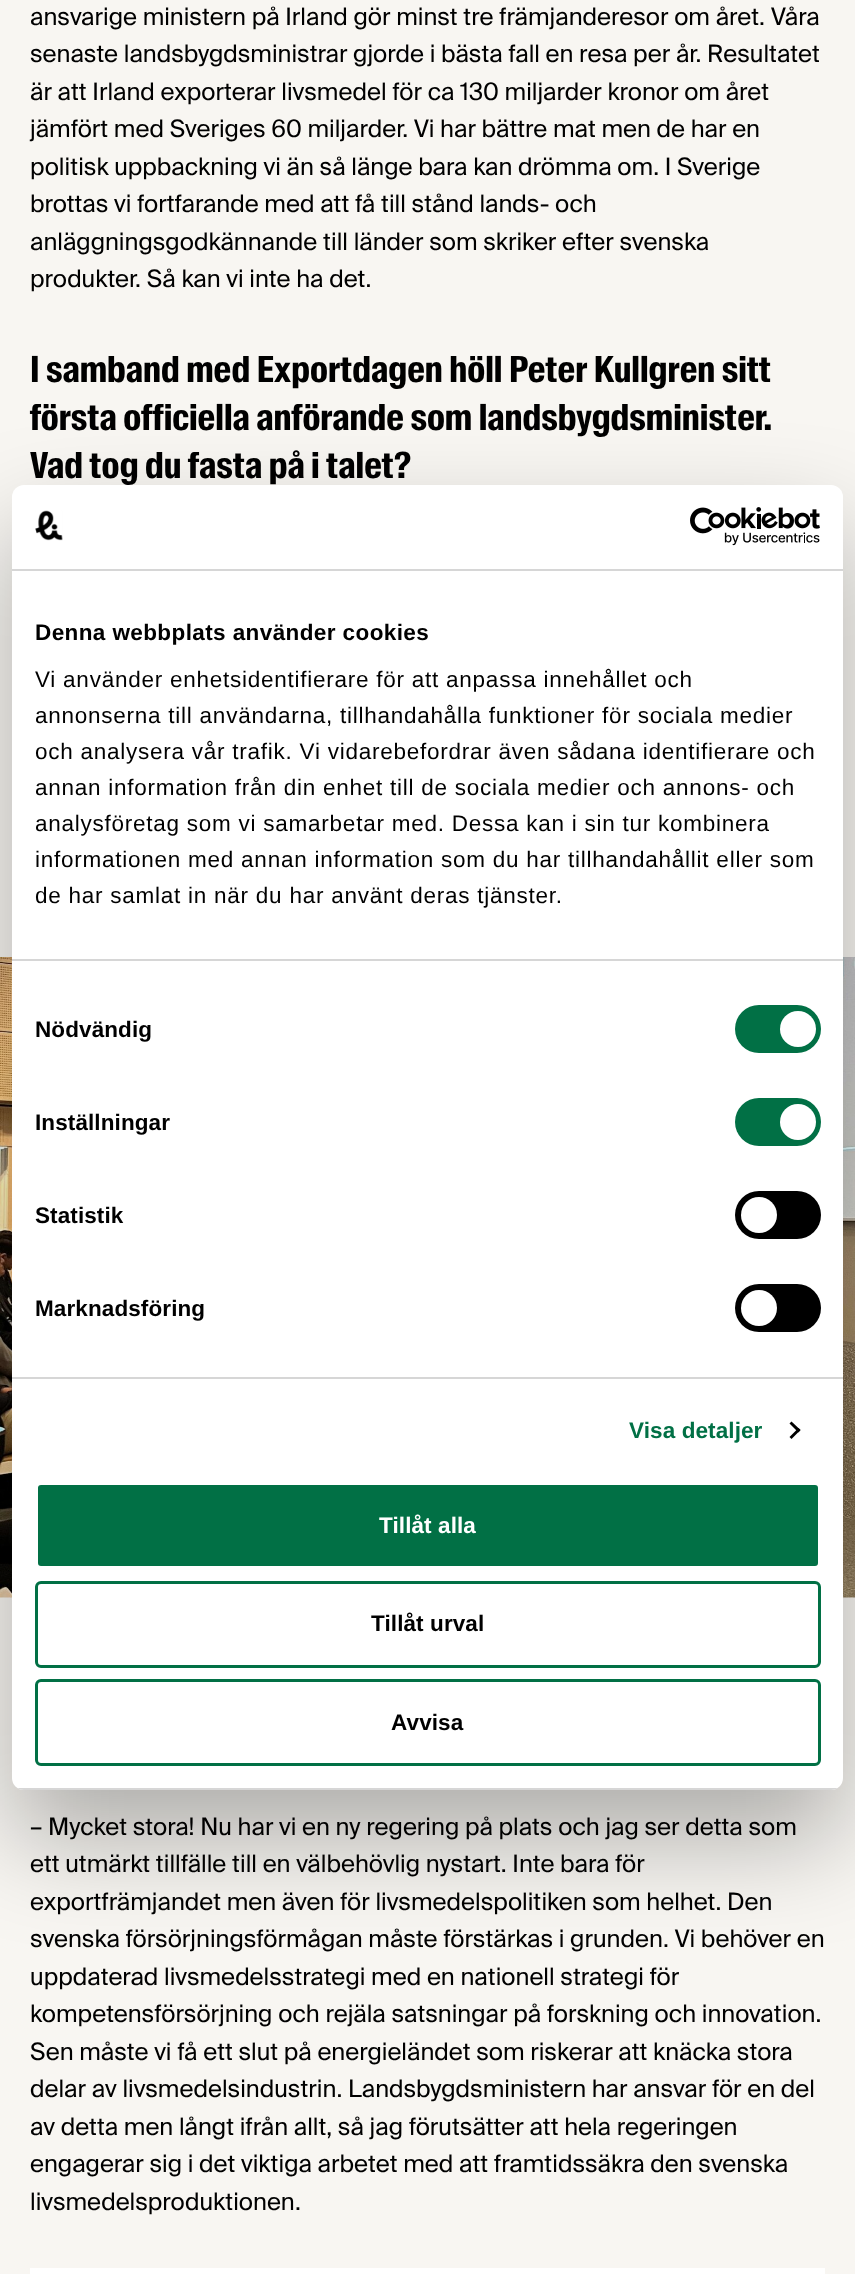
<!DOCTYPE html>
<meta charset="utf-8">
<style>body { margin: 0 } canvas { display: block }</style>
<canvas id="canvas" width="855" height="2274"></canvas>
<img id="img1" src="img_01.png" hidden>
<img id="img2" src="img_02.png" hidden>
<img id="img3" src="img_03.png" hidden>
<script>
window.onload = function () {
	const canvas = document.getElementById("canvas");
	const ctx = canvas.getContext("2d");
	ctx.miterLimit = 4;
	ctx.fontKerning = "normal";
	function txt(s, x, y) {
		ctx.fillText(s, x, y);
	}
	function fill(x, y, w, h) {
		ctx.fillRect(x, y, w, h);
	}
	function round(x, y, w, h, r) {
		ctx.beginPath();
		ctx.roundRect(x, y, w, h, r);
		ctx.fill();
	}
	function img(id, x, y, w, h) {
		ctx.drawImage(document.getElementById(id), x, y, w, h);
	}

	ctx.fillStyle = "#F8F6F2";
	fill(0, 0, 855, 2274);
	img("img1", 0, 957, 855, 641);
	ctx.fillStyle = "#FFFFFF";
	fill(30, 2268, 795, 6);
	ctx.fillStyle = "rgba(0, 0, 0, 0.3)";
	ctx.filter = "blur(51px)";
	ctx.beginPath();
	ctx.roundRect(12, 533, 831, 1305, 12);
	ctx.fill();
	ctx.filter = "none";
	ctx.fillStyle = "#FFFFFF";
	round(12, 485, 831, 1305, 12);
	ctx.fillStyle = "#D6D6D6";
	fill(12, 569, 831, 2);
	img("img2", 35, 510, 28, 31);
	img("img3", 690, 507, 130, 39);
	fill(12, 959, 831, 2);
	fill(12, 1377, 831, 2);
	ctx.fillStyle = "#017045";
	round(735, 1005, 86, 48, 24);
	ctx.fillStyle = "#FFFFFF";
	ctx.beginPath();
	ctx.arc(798, 1029, 18, 0, Math.PI * 2);
	ctx.fill();
	ctx.fillStyle = "#017045";
	round(735, 1098, 86, 48, 24);
	ctx.fillStyle = "#FFFFFF";
	ctx.beginPath();
	ctx.arc(798, 1122, 18, 0, Math.PI * 2);
	ctx.fill();
	ctx.fillStyle = "#000000";
	round(735, 1191, 86, 48, 24);
	ctx.fillStyle = "#FFFFFF";
	ctx.beginPath();
	ctx.arc(759, 1215, 18, 0, Math.PI * 2);
	ctx.fill();
	ctx.fillStyle = "#000000";
	round(735, 1284, 86, 48, 24);
	ctx.fillStyle = "#FFFFFF";
	ctx.beginPath();
	ctx.arc(759, 1308, 18, 0, Math.PI * 2);
	ctx.fill();
	ctx.fillStyle = "#000000";
	ctx.beginPath();
	ctx.moveTo(791.5, 1421.5);
	ctx.lineTo(800.5, 1430);
	ctx.lineTo(798.5, 1432.5);
	ctx.lineTo(789.5, 1423.5);
	ctx.closePath();
	ctx.fill();
	ctx.beginPath();
	ctx.moveTo(798.5, 1428);
	ctx.lineTo(800.5, 1430);
	ctx.lineTo(791.5, 1439);
	ctx.lineTo(789.5, 1437);
	ctx.closePath();
	ctx.fill();
	ctx.save();
	ctx.beginPath();
	ctx.roundRect(12, 485, 831, 1305, 12);
	ctx.clip();
	ctx.fillStyle = "#D6D6D6";
	fill(12, 1788, 831, 2);
	ctx.restore();
	ctx.fillStyle = "#017045";
	ctx.beginPath();
	ctx.roundRect(36.5, 1483.5, 783, 84, 4.5);
	ctx.fill();
	ctx.strokeStyle = "#FFFFFF";
	ctx.lineWidth = 3;
	ctx.stroke();
	ctx.beginPath();
	ctx.roundRect(36.5, 1582.5, 783, 84, 4.5);
	ctx.strokeStyle = "#017045";
	ctx.stroke();
	ctx.beginPath();
	ctx.roundRect(36.5, 1680.5, 783, 84, 4.5);
	ctx.stroke();
	ctx.font = "24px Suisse";
	ctx.fillStyle = "#000000";
	txt("ansvarige ministern på Irland gör minst tre främjanderesor om året. Våra", 30, 25);
	txt("senaste landsbygdsministrar gjorde i bästa fall en resa per år. Resultatet", 30, 62);
	txt("är att Irland exporterar livsmedel för ca 130 miljarder kronor om året", 30, 100);
	txt("jämfört med Sveriges 60 miljarder. Vi har bättre mat men de har en", 30, 137);
	txt("politisk uppbackning vi än så länge bara kan drömma om. I Sverige", 30, 175);
	txt("brottas vi fortfarande med att få till stånd lands- och", 30, 212);
	txt("anläggningsgodkännande till länder som skriker efter svenska", 30, 250);
	txt("produkter. Så kan vi inte ha det.", 30, 287);
	ctx.font = "bold 36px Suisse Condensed";
	txt("I samband med Exportdagen höll Peter Kullgren sitt", 30, 382);
	txt("första officiella anförande som landsbygdsminister.", 30, 430);
	txt("Vad tog du fasta på i talet?", 30, 478);
	ctx.font = "24px Suisse";
	txt("– Mycket stora! Nu har vi en ny regering på plats och jag ser detta som", 30, 1835);
	txt("ett utmärkt tillfälle till en välbehövlig nystart. Inte bara för", 30, 1872);
	txt("exportfrämjandet men även för livsmedelspolitiken som helhet. Den", 30, 1910);
	txt("svenska försörjningsförmågan måste förstärkas i grunden. Vi behöver en", 30, 1947);
	txt("uppdaterad livsmedelsstrategi med en nationell strategi för", 30, 1985);
	txt("kompetensförsörjning och rejäla satsningar på forskning och innovation.", 30, 2022);
	txt("Sen måste vi få ett slut på energieländet som riskerar att knäcka stora", 30, 2060);
	txt("delar av livsmedelsindustrin. Landsbygdsministern har ansvar för en del", 30, 2097);
	txt("av detta men långt ifrån allt, så jag förutsätter att hela regeringen", 30, 2135);
	txt("engagerar sig i det viktiga arbetet med att framtidssäkra den svenska", 30, 2172);
	txt("livsmedelsproduktionen.", 30, 2210);
	ctx.letterSpacing = "0.4px";
	ctx.font = "bold 22.5px Liberation Sans";
	txt("Denna webbplats använder cookies", 35, 640);
	ctx.letterSpacing = "0.75px";
	ctx.font = "22.5px Liberation Sans";
	txt("Vi använder enhetsidentifierare för att anpassa innehållet och", 35, 687);
	txt("annonserna till användarna, tillhandahålla funktioner för sociala medier", 35, 723);
	txt("och analysera vår trafik. Vi vidarebefordrar även sådana identifierare och", 35, 759);
	txt("annan information från din enhet till de sociala medier och annons- och", 35, 795);
	txt("analysföretag som vi samarbetar med. Dessa kan i sin tur kombinera", 35, 831);
	txt("informationen med annan information som du har tillhandahållit eller som", 35, 867);
	txt("de har samlat in när du har använt deras tjänster.", 35, 903);
	ctx.letterSpacing = "0.1px";
	ctx.font = "bold 22.5px Liberation Sans";
	txt("Nödvändig", 35, 1037);
	txt("Inställningar", 35, 1130);
	txt("Statistik", 35, 1223);
	txt("Marknadsföring", 35, 1316);
	ctx.fillStyle = "#017045";
	txt("Visa detaljer", 629, 1438);
	ctx.fillStyle = "#FFFFFF";
	txt("Tillåt alla", 379, 1533);
	ctx.fillStyle = "#000000";
	txt("Tillåt urval", 371, 1631);
	txt("Avvisa", 391, 1730);
};
</script>
